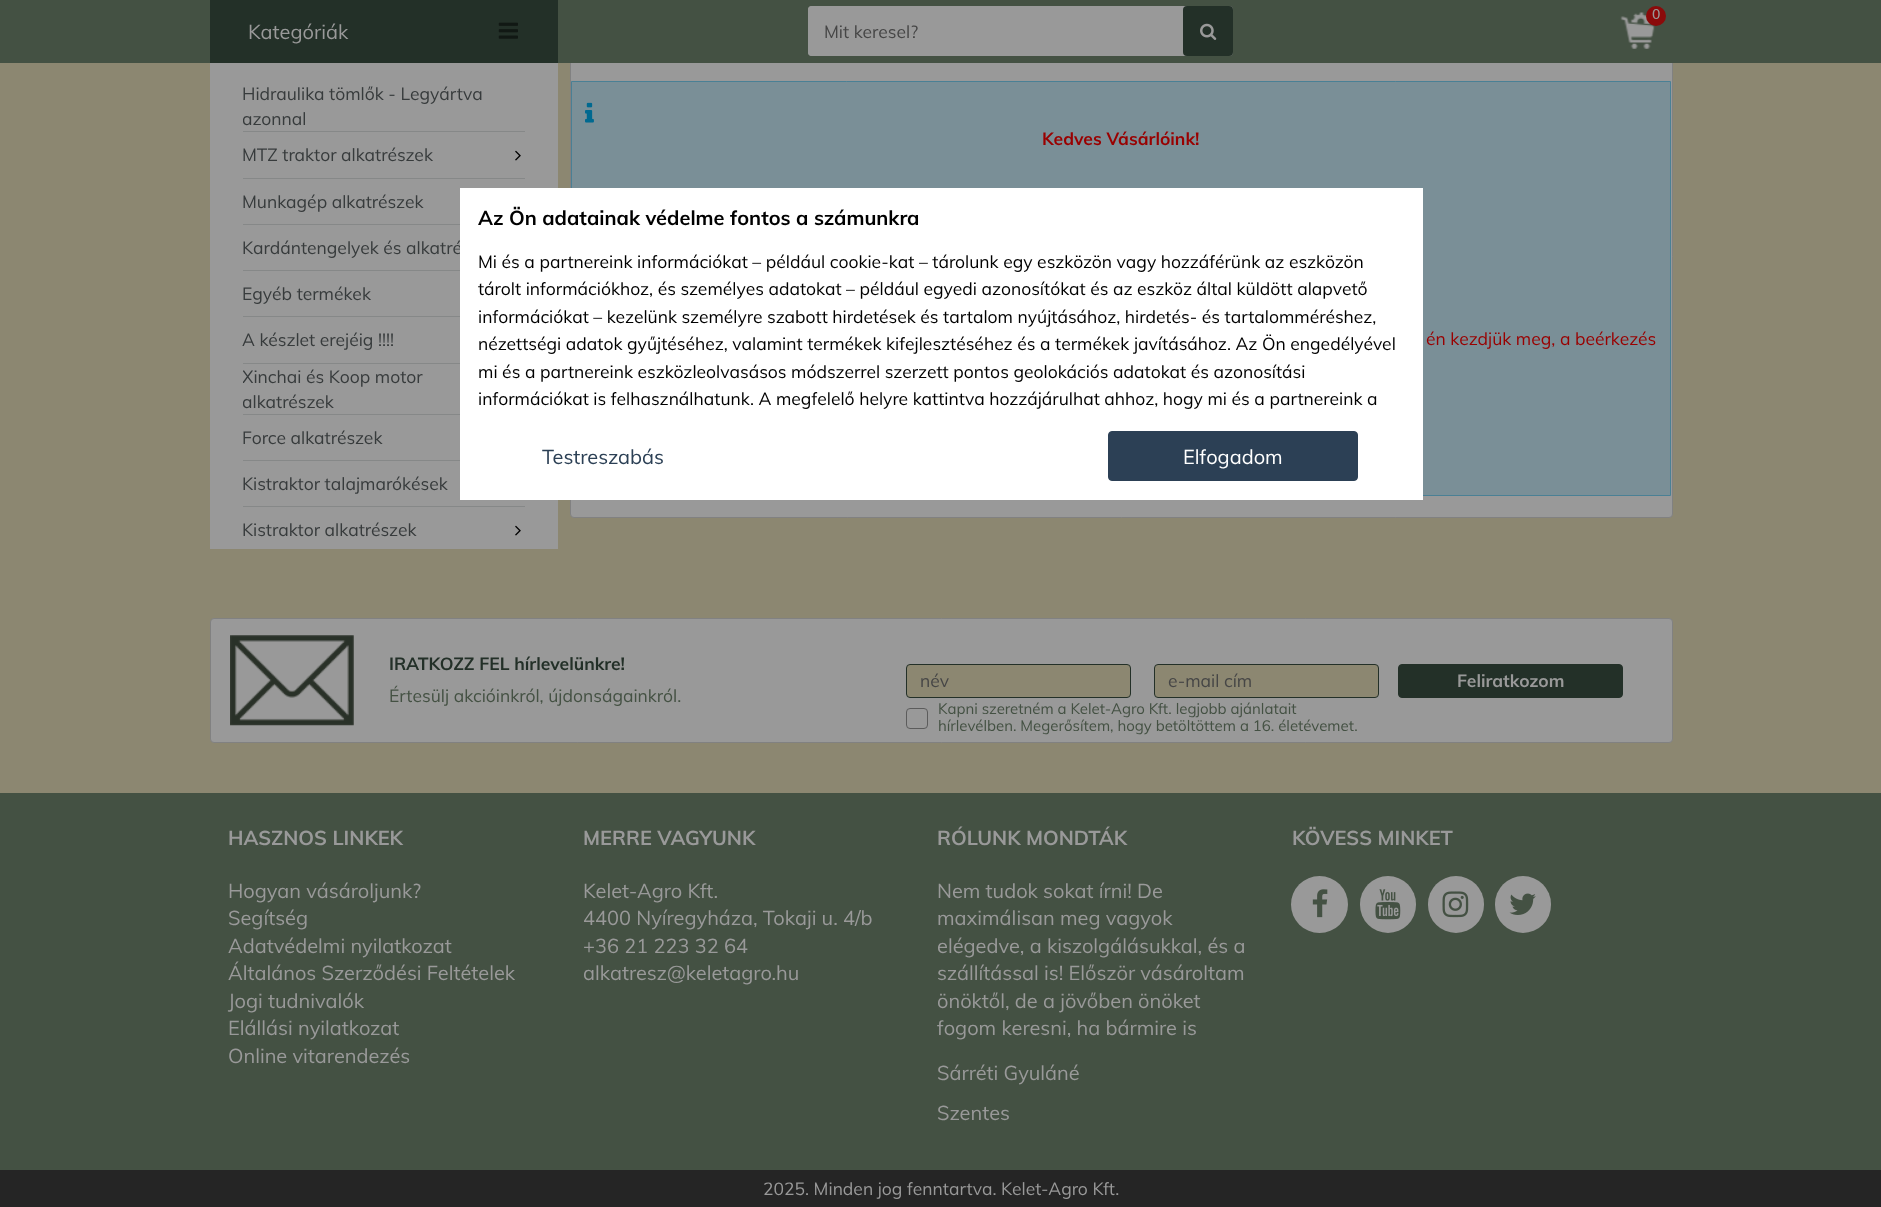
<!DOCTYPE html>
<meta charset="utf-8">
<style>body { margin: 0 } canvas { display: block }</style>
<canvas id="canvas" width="1881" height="1207"></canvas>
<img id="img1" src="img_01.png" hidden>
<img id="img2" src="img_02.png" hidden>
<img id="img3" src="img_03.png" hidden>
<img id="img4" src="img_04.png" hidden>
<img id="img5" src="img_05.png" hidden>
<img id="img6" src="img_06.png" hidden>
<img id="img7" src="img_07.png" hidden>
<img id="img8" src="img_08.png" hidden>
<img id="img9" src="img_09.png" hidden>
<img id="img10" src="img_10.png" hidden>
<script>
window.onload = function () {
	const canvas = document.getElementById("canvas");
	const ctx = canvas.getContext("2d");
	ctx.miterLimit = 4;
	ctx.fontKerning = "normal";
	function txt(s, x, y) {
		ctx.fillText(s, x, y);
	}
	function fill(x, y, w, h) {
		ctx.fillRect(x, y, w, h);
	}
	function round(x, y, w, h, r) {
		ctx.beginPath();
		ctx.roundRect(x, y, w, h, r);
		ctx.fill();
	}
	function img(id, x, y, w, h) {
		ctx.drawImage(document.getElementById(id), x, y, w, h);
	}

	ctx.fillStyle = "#8C8771";
	fill(0, 0, 1881, 1207);
	ctx.fillStyle = "#999999";
	ctx.beginPath();
	ctx.roundRect(570.5, -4.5, 1102, 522, 3.5);
	ctx.fill();
	ctx.strokeStyle = "#818181";
	ctx.stroke();
	ctx.fillStyle = "#445143";
	fill(0, 0, 1881, 63);
	img("img1", 1620, 12, 35, 37);
	ctx.fillStyle = "#8B0A0A";
	ctx.beginPath();
	ctx.arc(1656, 16, 10, 0, Math.PI * 2);
	ctx.fill();
	ctx.fillStyle = "#233028";
	fill(210, 0, 348, 63);
	img("img2", 498, 22, 20, 17);
	ctx.fillStyle = "#999999";
	fill(210, 63, 348, 486);
	ctx.fillStyle = "#868888";
	fill(243, 131, 282, 1);
	img("img3", 515, 150, 6, 11);
	fill(243, 178, 282, 1);
	fill(243, 224, 217, 1);
	fill(243, 270, 217, 1);
	fill(243, 316, 217, 1);
	fill(243, 363, 217, 1);
	fill(243, 414, 217, 1);
	fill(243, 460, 217, 1);
	fill(243, 506, 282, 1);
	img("img3", 515, 525, 6, 11);
	ctx.fillStyle = "#999999";
	round(808, 6, 425, 50, 4);
	round(808, 6, 375, 50, 4);
	ctx.fillStyle = "#233028";
	round(1183, 6, 50, 50, 4);
	img("img4", 1200, 23, 17, 17);
	ctx.fillStyle = "#7A8F97";
	ctx.beginPath();
	ctx.rect(571.5, 81.5, 1099, 414);
	ctx.fill();
	ctx.strokeStyle = "#4A8095";
	ctx.stroke();
	img("img5", 585, 102, 9, 21);
	ctx.fillStyle = "#999999";
	ctx.beginPath();
	ctx.roundRect(210.5, 618.5, 1462, 124, 3.5);
	ctx.fill();
	ctx.strokeStyle = "#818181";
	ctx.stroke();
	img("img6", 230, 635, 124, 91);
	ctx.fillStyle = "#8C8771";
	ctx.beginPath();
	ctx.roundRect(906.5, 664.5, 224, 33, 3.5);
	ctx.fill();
	ctx.strokeStyle = "#233028";
	ctx.stroke();
	ctx.beginPath();
	ctx.roundRect(1154.5, 664.5, 224, 33, 3.5);
	ctx.fill();
	ctx.stroke();
	ctx.beginPath();
	ctx.roundRect(906.5, 708.5, 21, 20, 3.5);
	ctx.strokeStyle = "#5C5C5C";
	ctx.stroke();
	ctx.fillStyle = "#233028";
	ctx.beginPath();
	ctx.roundRect(1398.5, 664.5, 224, 33, 3.5);
	ctx.fill();
	ctx.strokeStyle = "#233028";
	ctx.stroke();
	ctx.fillStyle = "#445143";
	fill(0, 793, 1881, 377);
	ctx.fillStyle = "#999999";
	ctx.beginPath();
	ctx.arc(1319.5, 904.5, 28.5, 0, Math.PI * 2);
	ctx.fill();
	img("img7", 1312, 889, 16, 29);
	round(1360, 876, 56, 57, 28);
	img("img8", 1375, 889, 26, 31);
	round(1428, 876, 56, 57, 28);
	img("img9", 1442, 891, 27, 27);
	round(1495, 876, 56, 57, 28);
	img("img10", 1509, 893, 27, 22);
	ctx.fillStyle = "#252525";
	fill(0, 1170, 1881, 37);
	ctx.font = "600 14px Muli";
	ctx.fillStyle = "#999999";
	txt("0", 1652, 19);
	ctx.font = "20px Muli";
	txt("Kategóriák", 248, 39);
	ctx.font = "17.5px Muli";
	ctx.fillStyle = "#373B3C";
	txt("Hidraulika tömlők - Legyártva", 242, 100);
	ctx.save();
	ctx.beginPath();
	ctx.rect(243, 81, 282, 50);
	ctx.clip();
	txt("azonnal", 242, 125);
	ctx.restore();
	txt("MTZ traktor alkatrészek", 242, 161);
	txt("Munkagép alkatrészek", 242, 208);
	txt("Kardántengelyek és alkatré", 242, 254);
	txt("Egyéb termékek", 242, 300);
	txt("A készlet erejéig !!!!", 242, 346);
	ctx.save();
	ctx.beginPath();
	ctx.rect(243, 364, 272, 50);
	ctx.clip();
	txt("Xinchai és Koop motor", 242, 383);
	txt("alkatrészek", 242, 408);
	ctx.restore();
	txt("Force alkatrészek", 242, 444);
	txt("Kistraktor talajmarókések", 242, 490);
	txt("Kistraktor alkatrészek", 242, 536);
	ctx.fillStyle = "#464646";
	txt("Mit keresel?", 824, 38);
	ctx.font = "bold 17.5px Muli";
	ctx.fillStyle = "#990000";
	txt("Kedves Vásárlóink!", 1042, 145);
	ctx.font = "17.5px Muli";
	txt("én kezdjük meg, a beérkezés", 1426, 345);
	ctx.font = "bold 17.5px Muli";
	ctx.fillStyle = "#233028";
	txt("IRATKOZZ FEL hírlevelünkre!", 389, 670);
	ctx.font = "17.5px Muli";
	ctx.fillStyle = "#445143";
	txt("Értesülj akcióinkról, újdonságainkról.", 389, 702);
	ctx.fillStyle = "#464646";
	txt("név", 920, 687);
	txt("e-mail cím", 1168, 687);
	ctx.font = "15px Muli";
	ctx.fillStyle = "#445143";
	txt("Kapni szeretném a Kelet-Agro Kft. legjobb ajánlatait", 938, 714);
	txt("hírlevélben. Megerősítem, hogy betöltöttem a 16. életévemet.", 938, 731);
	ctx.font = "bold 17.5px Muli";
	ctx.fillStyle = "#999999";
	txt("Feliratkozom", 1457, 687);
	ctx.fillStyle = "#FFFFFF";
	fill(460, 188, 963, 312);
	ctx.font = "bold 20px Muli";
	ctx.fillStyle = "#000000";
	txt("Az Ön adatainak védelme fontos a számunkra", 478, 225);
	ctx.font = "17.5px Muli";
	txt("Mi és a partnereink információkat – például cookie-kat – tárolunk egy eszközön vagy hozzáférünk az eszközön", 478, 268);
	txt("tárolt információkhoz, és személyes adatokat – például egyedi azonosítókat és az eszköz által küldött alapvető", 478, 295);
	txt("információkat – kezelünk személyre szabott hirdetések és tartalom nyújtásához, hirdetés- és tartalomméréshez,", 478, 323);
	txt("nézettségi adatok gyűjtéséhez, valamint termékek kifejlesztéséhez és a termékek javításához. Az Ön engedélyével", 478, 350);
	txt("mi és a partnereink eszközleolvasásos módszerrel szerzett pontos geolokációs adatokat és azonosítási", 478, 378);
	txt("információkat is felhasználhatunk. A megfelelő helyre kattintva hozzájárulhat ahhoz, hogy mi és a partnereink a", 478, 405);
	ctx.font = "20px Muli";
	ctx.fillStyle = "#2C4055";
	txt("Testreszabás", 542, 464);
	ctx.beginPath();
	ctx.roundRect(1108.5, 431.5, 249, 49, 3.5);
	ctx.fill();
	ctx.strokeStyle = "#2C4055";
	ctx.stroke();
	ctx.fillStyle = "#FFFFFF";
	txt("Elfogadom", 1183, 464);
	ctx.font = "bold 20px Muli";
	ctx.fillStyle = "#999999";
	txt("HASZNOS LINKEK", 228, 845);
	ctx.font = "20px Muli";
	txt("Hogyan vásároljunk?", 228, 898);
	txt("Segítség", 228, 925);
	txt("Adatvédelmi nyilatkozat", 228, 953);
	txt("Általános Szerződési Feltételek", 228, 980);
	txt("Jogi tudnivalók", 228, 1008);
	txt("Elállási nyilatkozat", 228, 1035);
	txt("Online vitarendezés", 228, 1063);
	ctx.font = "bold 20px Muli";
	txt("MERRE VAGYUNK", 583, 845);
	ctx.font = "20px Muli";
	txt("Kelet-Agro Kft.", 583, 898);
	txt("4400 Nyíregyháza, Tokaji u. 4/b", 583, 925);
	txt("+36 21 223 32 64", 583, 953);
	txt("alkatresz@keletagro.hu", 583, 980);
	ctx.font = "bold 20px Muli";
	txt("RÓLUNK MONDTÁK", 937, 845);
	ctx.font = "20px Muli";
	txt("Nem tudok sokat írni! De", 937, 898);
	txt("maximálisan meg vagyok", 937, 925);
	txt("elégedve, a kiszolgálásukkal, és a", 937, 953);
	txt("szállítással is! Először vásároltam", 937, 980);
	txt("önöktől, de a jövőben önöket", 937, 1008);
	txt("fogom keresni, ha bármire is", 937, 1035);
	txt("Sárréti Gyuláné", 937, 1080);
	txt("Szentes", 937, 1120);
	ctx.font = "bold 20px Muli";
	txt("KÖVESS MINKET", 1292, 845);
	ctx.font = "17.5px Muli";
	txt("2025. Minden jog fenntartva. Kelet-Agro Kft.", 763, 1195);
};
</script>
